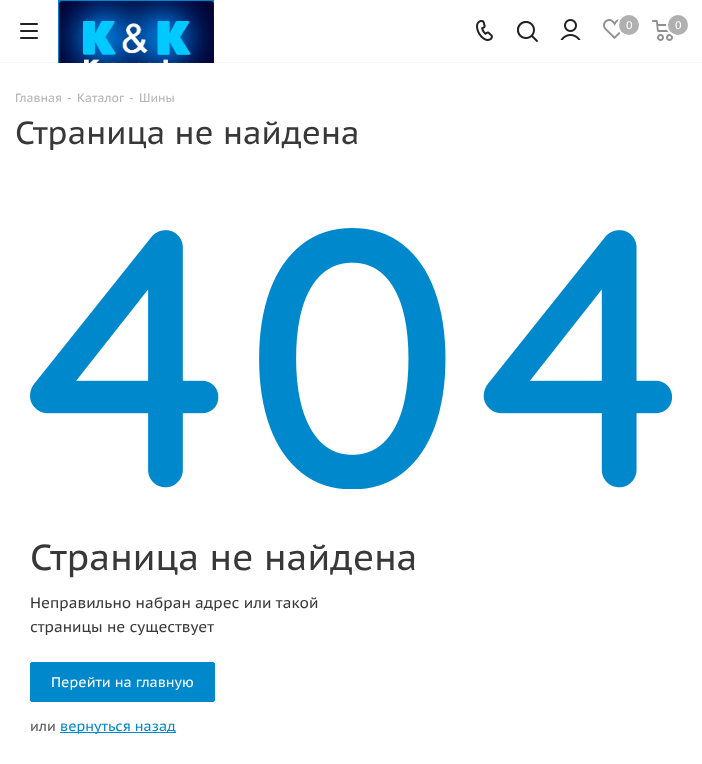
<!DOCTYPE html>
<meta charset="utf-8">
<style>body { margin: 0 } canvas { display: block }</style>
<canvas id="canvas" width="702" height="764"></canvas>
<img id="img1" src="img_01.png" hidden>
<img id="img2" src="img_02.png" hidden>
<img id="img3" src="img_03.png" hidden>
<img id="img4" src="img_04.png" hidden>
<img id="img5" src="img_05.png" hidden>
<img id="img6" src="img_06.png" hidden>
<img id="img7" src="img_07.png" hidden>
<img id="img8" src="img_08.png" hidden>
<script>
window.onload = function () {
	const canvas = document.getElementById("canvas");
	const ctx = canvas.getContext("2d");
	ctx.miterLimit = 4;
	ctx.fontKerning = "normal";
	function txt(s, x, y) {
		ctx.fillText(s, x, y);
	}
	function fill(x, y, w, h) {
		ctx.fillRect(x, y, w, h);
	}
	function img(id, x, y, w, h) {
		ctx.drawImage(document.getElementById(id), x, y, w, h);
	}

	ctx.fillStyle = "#FFFFFF";
	fill(0, 0, 702, 764);
	ctx.fillStyle = "#F5F5F5";
	fill(0, 62, 702, 1);
	img("img1", 20, 23, 18, 16);
	ctx.fillStyle = "#0088CC";
	fill(58, 0, 156, 63);
	img("img2", 58, 0, 156, 63);
	img("img3", 476, 20, 17, 21);
	img("img4", 517, 21, 21, 21);
	img("img5", 560, 19, 21, 21);
	img("img6", 603, 19, 19, 20);
	ctx.beginPath();
	ctx.arc(629, 25, 11, 0, Math.PI * 2);
	ctx.strokeStyle = "#FFFFFF";
	ctx.lineWidth = 2;
	ctx.stroke();
	ctx.fillStyle = "#B0B0B0";
	ctx.beginPath();
	ctx.arc(629, 25, 10, 0, Math.PI * 2);
	ctx.fill();
	img("img7", 652, 20, 21, 21);
	ctx.beginPath();
	ctx.arc(678, 25, 11, 0, Math.PI * 2);
	ctx.stroke();
	ctx.beginPath();
	ctx.arc(678, 25, 10, 0, Math.PI * 2);
	ctx.fill();
	img("img8", 30, 228, 642, 261);
	ctx.fillStyle = "#0088CC";
	ctx.beginPath();
	ctx.roundRect(30.5, 662.5, 184, 39, 1.5);
	ctx.fill();
	ctx.strokeStyle = "#0088CC";
	ctx.lineWidth = 1;
	ctx.stroke();
	fill(60, 732, 116, 1);
	ctx.font = "11px PT Sans Caption";
	ctx.fillStyle = "#FFFFFF";
	txt("0", 626, 29);
	txt("0", 675, 29);
	ctx.font = "12px PT Sans Caption";
	ctx.fillStyle = "#B6B5B5";
	txt("Главная", 15, 102);
	txt("-", 67, 102);
	txt("Каталог", 77, 102);
	txt("-", 129, 102);
	txt("Шины", 139, 102);
	ctx.save();
	ctx.beginPath();
	ctx.rect(15, 114, 672, 36);
	ctx.clip();
	ctx.font = "32px PT Sans Caption";
	ctx.fillStyle = "#383838";
	txt("Страница не найдена", 15, 144);
	ctx.restore();
	ctx.font = "36px PT Sans Caption";
	ctx.fillStyle = "#383838";
	txt("Страница не найдена", 30, 570);
	ctx.font = "15px PT Sans Caption";
	txt("Неправильно набран адрес или такой", 30, 608);
	txt("страницы не существует", 30, 632);
	ctx.font = "14px PT Sans Caption";
	ctx.fillStyle = "#FFFFFF";
	txt("Перейти на главную", 51, 687);
	ctx.fillStyle = "#555555";
	txt("или", 30, 731);
	ctx.fillStyle = "#0088CC";
	txt("вернуться назад", 60, 731);
};
</script>
